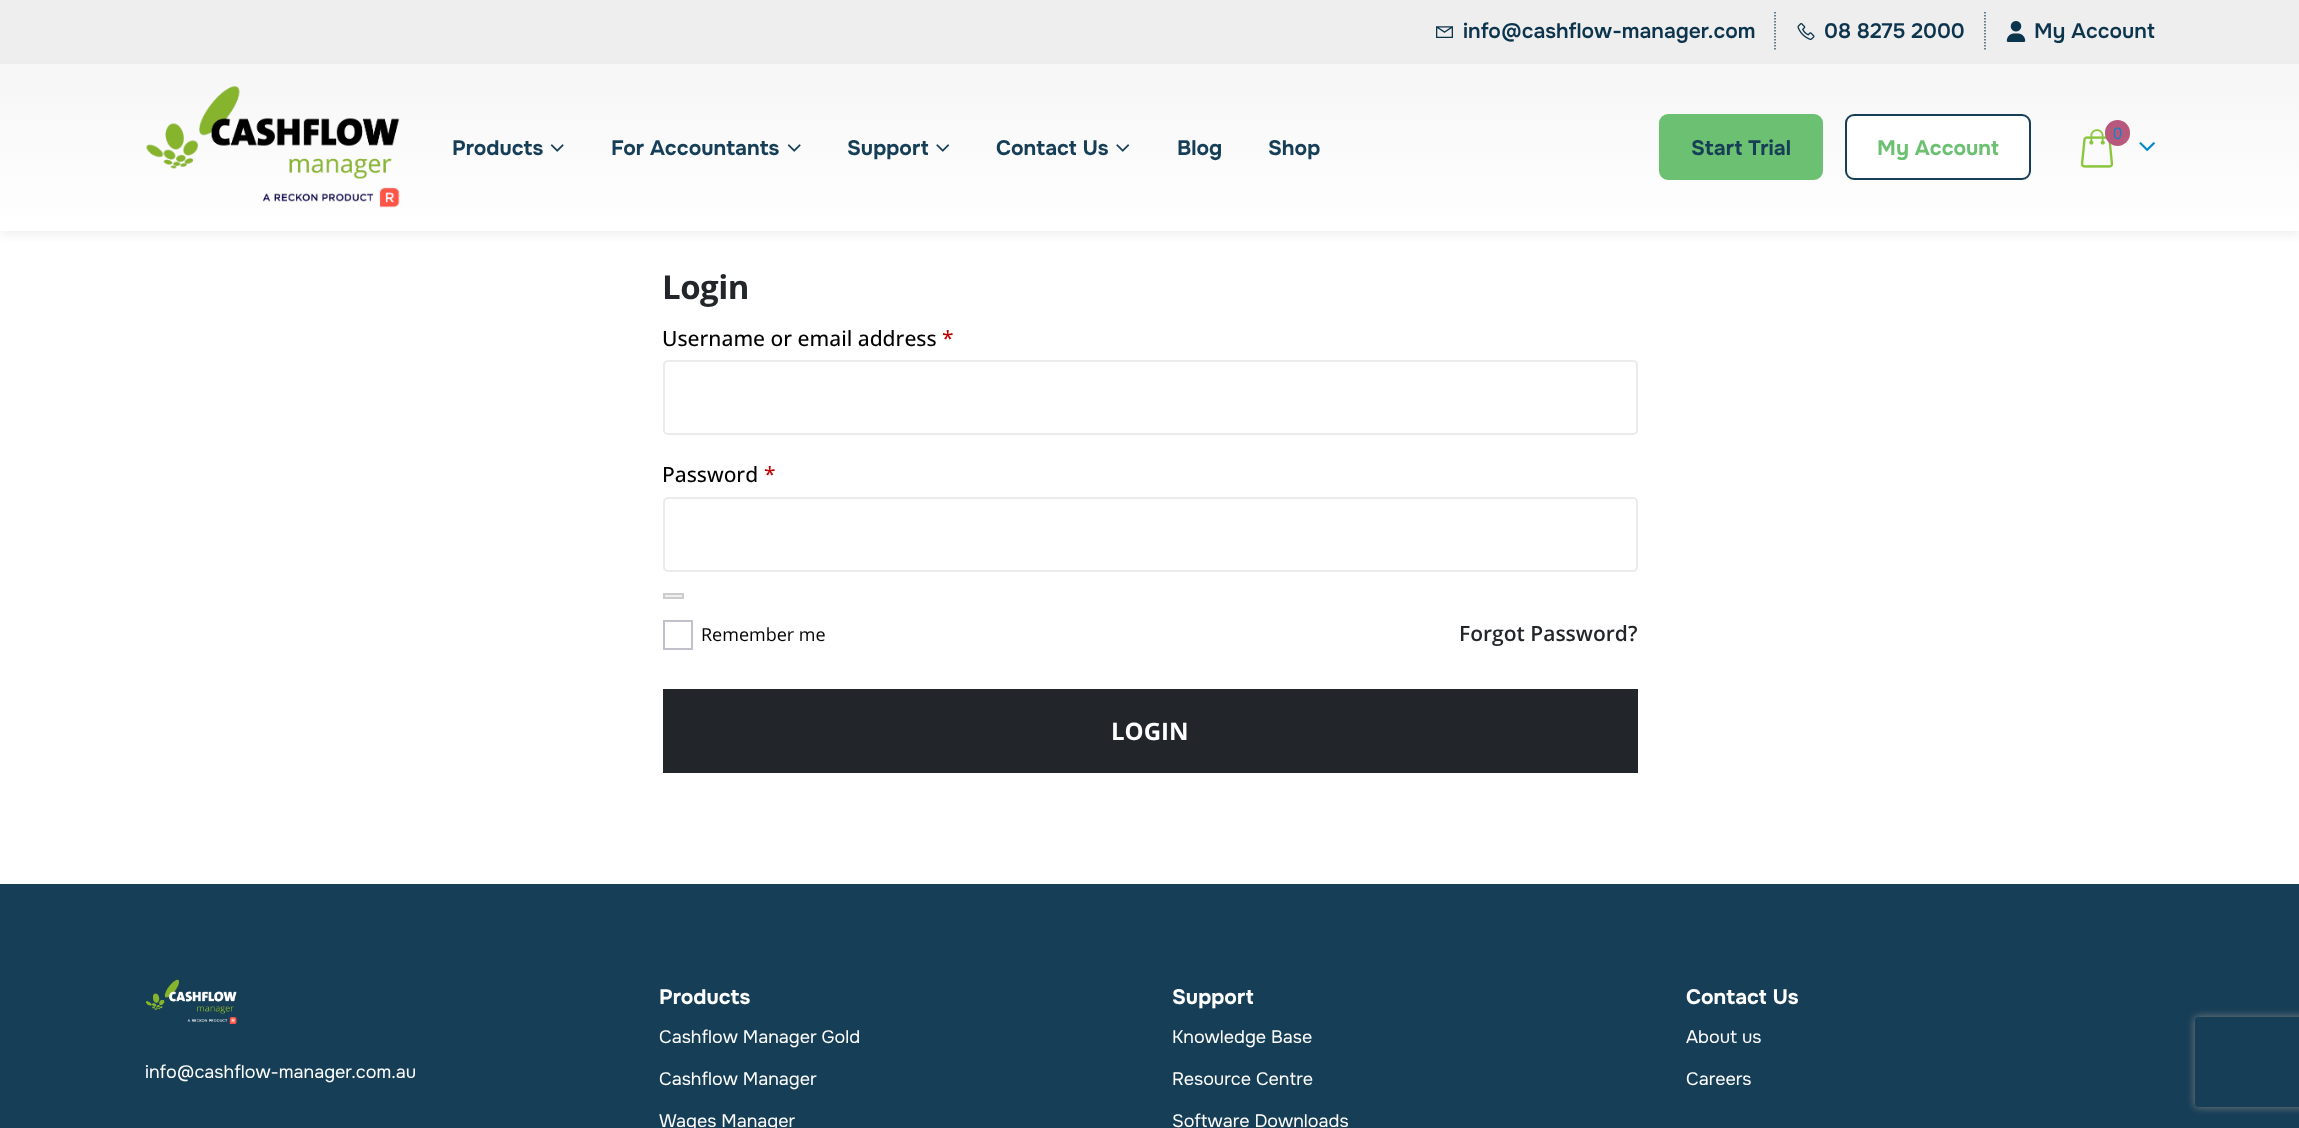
<!DOCTYPE html>
<meta charset="utf-8">
<style>body { margin: 0 } canvas { display: block }</style>
<canvas id="canvas" width="2299" height="1128"></canvas>
<img id="img1" src="img_01.png" hidden>
<img id="img2" src="img_02.png" hidden>
<img id="img3" src="img_03.png" hidden>
<img id="img4" src="img_04.png" hidden>
<img id="img5" src="img_05.png" hidden>
<img id="img6" src="img_06.png" hidden>
<img id="img7" src="img_07.png" hidden>
<img id="img8" src="img_08.png" hidden>
<img id="img9" src="img_09.png" hidden>
<script>
window.onload = function () {
	const canvas = document.getElementById("canvas");
	const ctx = canvas.getContext("2d");
	ctx.miterLimit = 4;
	ctx.fontKerning = "normal";
	function txt(s, x, y) {
		ctx.fillText(s, x, y);
	}
	function fill(x, y, w, h) {
		ctx.fillRect(x, y, w, h);
	}
	function round(x, y, w, h, r) {
		ctx.beginPath();
		ctx.roundRect(x, y, w, h, r);
		ctx.fill();
	}
	function img(id, x, y, w, h) {
		ctx.drawImage(document.getElementById(id), x, y, w, h);
	}
	let gradient;

	ctx.fillStyle = "#FFFFFF";
	fill(0, 0, 2299, 1128);
	ctx.fillStyle = "rgba(0, 0, 0, 0.05)";
	ctx.filter = "blur(4px)";
	ctx.beginPath();
	ctx.rect(0, 5, 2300, 231);
	ctx.fill();
	ctx.filter = "none";
	ctx.fillStyle = "#EEEEEE";
	fill(0, 0, 2299, 62);
	ctx.fillStyle = "#EDEDED";
	fill(0, 62, 2299, 2);
	img("img1", 1436, 26, 17, 12);
	ctx.beginPath();
	ctx.moveTo(1775, 12);
	ctx.lineTo(1775, 49.5);
	ctx.strokeStyle = "#39596D";
	ctx.lineWidth = 1.5;
	ctx.setLineDash([1.5, 1.5]);
	ctx.stroke();
	img("img2", 1797, 23, 18, 17);
	ctx.beginPath();
	ctx.moveTo(1985, 12);
	ctx.lineTo(1985, 49.5);
	ctx.stroke();
	img("img3", 2006, 21, 20, 21);
	gradient = ctx.createLinearGradient(1150, 63, 1150, 231);
	gradient.addColorStop(0, "#F6F6F6");
	gradient.addColorStop(1, "#FFFFFF");
	ctx.fillStyle = gradient;
	fill(0, 64, 2299, 167);
	img("img4", 146, 86, 254, 122);
	img("img5", 2080, 129, 34, 39);
	ctx.fillStyle = "#B7597C";
	round(2105, 120, 25, 26, 12.5);
	img("img6", 2139, 142, 16, 10);
	img("img7", 550, 144, 14, 8);
	img("img7", 787, 144, 14, 8);
	img("img8", 936, 144, 14, 8);
	img("img8", 1116, 144, 14, 8);
	ctx.fillStyle = "#6CC071";
	ctx.beginPath();
	ctx.roundRect(1660, 115, 162, 64, 8);
	ctx.fill();
	ctx.strokeStyle = "#6CC071";
	ctx.lineWidth = 2;
	ctx.setLineDash([]);
	ctx.stroke();
	ctx.fillStyle = "#FFFFFF";
	ctx.beginPath();
	ctx.roundRect(1846, 115, 184, 64, 8);
	ctx.fill();
	ctx.strokeStyle = "#163E57";
	ctx.stroke();
	ctx.beginPath();
	ctx.roundRect(664, 361, 973, 73, 4);
	ctx.strokeStyle = "#EBEBEB";
	ctx.stroke();
	ctx.beginPath();
	ctx.roundRect(664, 498, 973, 73, 4);
	ctx.stroke();
	ctx.fillStyle = "#EFEFEF";
	ctx.beginPath();
	ctx.rect(664, 594, 19, 4);
	ctx.fill();
	ctx.strokeStyle = "#CCCCCC";
	ctx.stroke();
	ctx.strokeStyle = "#C2C0CA";
	ctx.strokeRect(664, 621, 28, 28);
	ctx.fillStyle = "#222529";
	fill(663, 689, 975, 84);
	ctx.fillStyle = "#163E57";
	fill(0, 884, 2299, 244);
	img("img9", 145, 979, 92, 46);
	ctx.save();
	ctx.beginPath();
	ctx.moveTo(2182, 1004);
	ctx.lineTo(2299, 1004);
	ctx.lineTo(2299, 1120);
	ctx.lineTo(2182, 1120);
	ctx.closePath();
	ctx.moveTo(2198, 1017);
	ctx.lineTo(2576, 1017);
	ctx.bezierCurveTo(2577.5, 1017, 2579, 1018.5, 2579, 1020);
	ctx.lineTo(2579, 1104);
	ctx.bezierCurveTo(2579, 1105.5, 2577.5, 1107, 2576, 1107);
	ctx.lineTo(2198, 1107);
	ctx.bezierCurveTo(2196.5, 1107, 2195, 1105.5, 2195, 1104);
	ctx.lineTo(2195, 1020);
	ctx.bezierCurveTo(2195, 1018.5, 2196.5, 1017, 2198, 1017);
	ctx.closePath();
	ctx.clip("evenodd");
	ctx.fillStyle = "#808080";
	ctx.filter = "blur(4px)";
	ctx.beginPath();
	ctx.roundRect(2195, 1017, 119, 90, 3);
	ctx.fill();
	ctx.filter = "none";
	ctx.restore();
	ctx.font = "600 21px Onest";
	ctx.fillStyle = "#0C344D";
	txt("info@cashflow-manager.com", 1463, 38);
	txt("08 8275 2000", 1824, 38);
	txt("My Account", 2034, 38);
	ctx.font = "16px Open Sans";
	ctx.fillStyle = "#0088CC";
	txt("0", 2113, 139);
	ctx.font = "bold 21px Onest";
	ctx.fillStyle = "#163E57";
	txt("Products", 452, 155);
	txt("For Accountants", 611, 155);
	txt("Support", 847, 155);
	txt("Contact Us", 996, 155);
	txt("Blog", 1177, 155);
	txt("Shop", 1268, 155);
	txt("Start Trial", 1691, 155);
	ctx.fillStyle = "#6CC071";
	txt("My Account", 1877, 155);
	ctx.letterSpacing = "-0.5px";
	ctx.font = "bold 33px Open Sans";
	ctx.fillStyle = "#222529";
	txt("Login", 662, 299);
	ctx.letterSpacing = "0px";
	ctx.font = "500 21px Open Sans";
	ctx.fillStyle = "#000000";
	txt("Username or email address", 662, 346);
	ctx.fillStyle = "#C10000";
	txt("*", 942, 346);
	ctx.fillStyle = "#000000";
	txt("Password", 662, 482);
	ctx.fillStyle = "#C10000";
	txt("*", 764, 482);
	ctx.font = "18px Open Sans";
	ctx.fillStyle = "#000000";
	txt("Remember me", 701, 641);
	ctx.font = "600 21px Open Sans";
	ctx.fillStyle = "#222529";
	txt("Forgot Password?", 1459, 641);
	ctx.font = "bold 24px Open Sans";
	ctx.fillStyle = "#FFFFFF";
	txt("LOGIN", 1111, 740);
	ctx.font = "18px Onest";
	txt("info@cashflow-manager.com.au", 145, 1078);
	ctx.font = "bold 21px Onest";
	txt("Products", 659, 1004);
	ctx.font = "18px Onest";
	txt("Cashflow Manager Gold", 659, 1043);
	txt("Cashflow Manager", 659, 1085);
	txt("Wages Manager", 659, 1127);
	ctx.font = "bold 21px Onest";
	txt("Support", 1172, 1004);
	ctx.font = "18px Onest";
	txt("Knowledge Base", 1172, 1043);
	txt("Resource Centre", 1172, 1085);
	txt("Software Downloads", 1172, 1127);
	ctx.font = "bold 21px Onest";
	txt("Contact Us", 1686, 1004);
	ctx.font = "18px Onest";
	txt("About us", 1686, 1043);
	txt("Careers", 1686, 1085);
};
</script>
